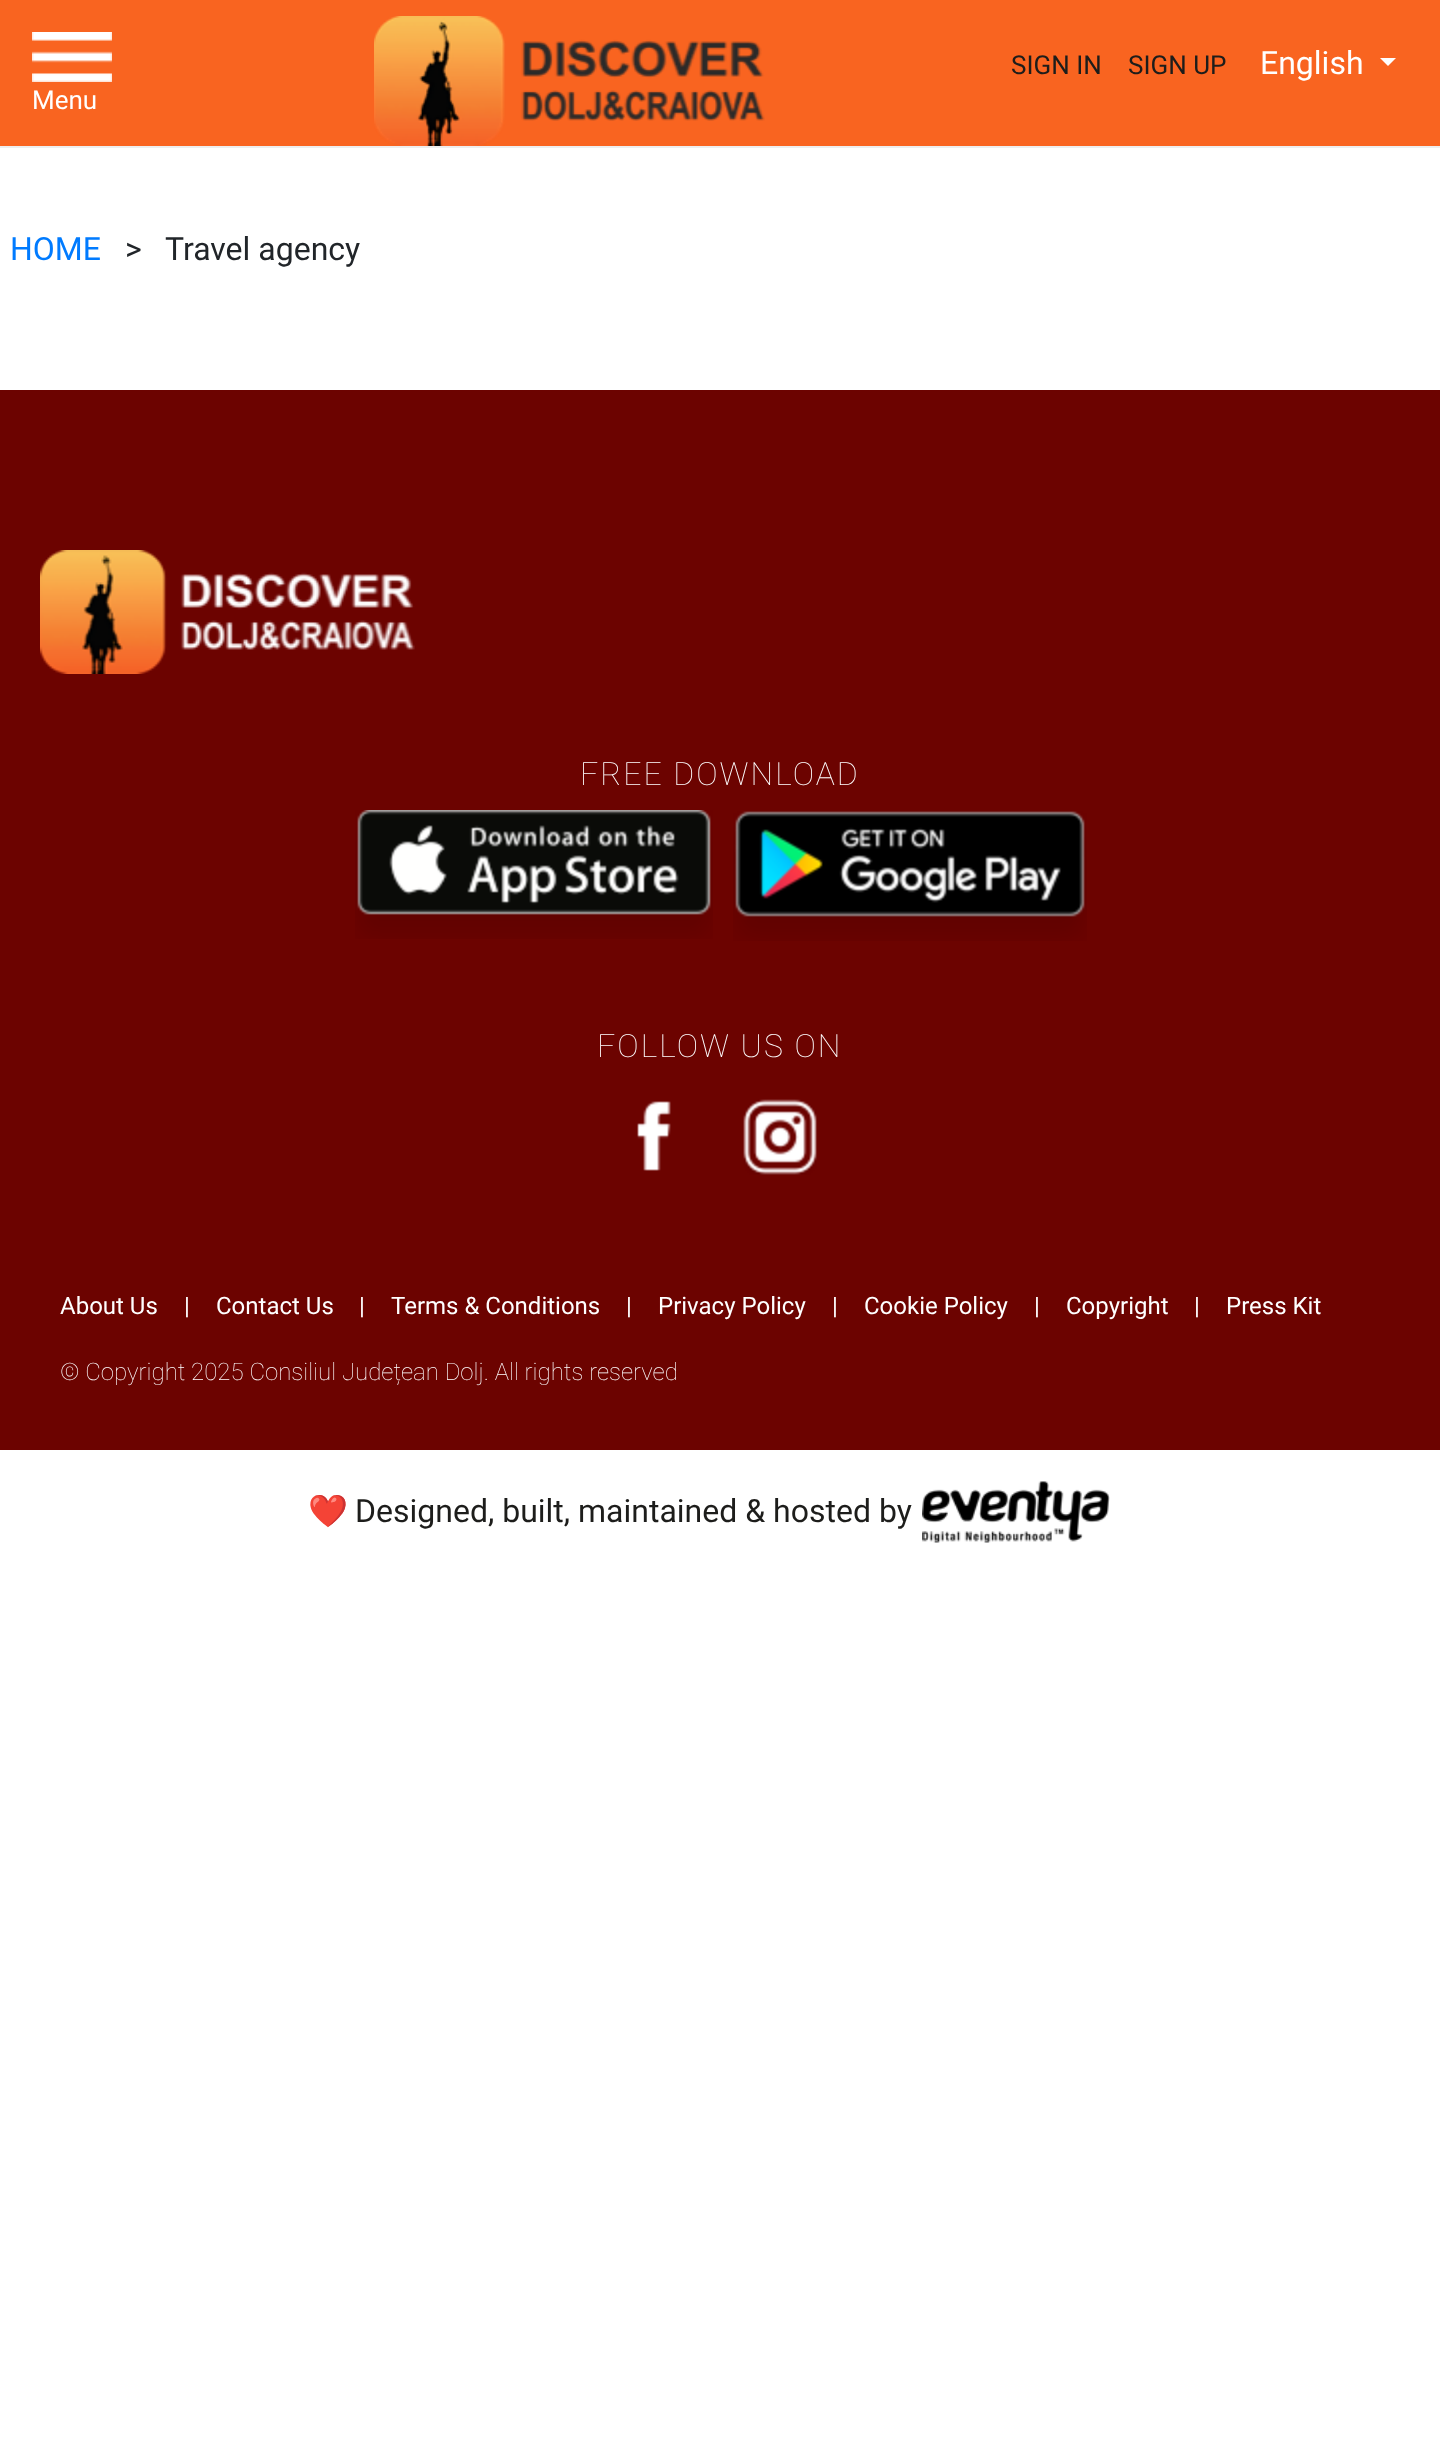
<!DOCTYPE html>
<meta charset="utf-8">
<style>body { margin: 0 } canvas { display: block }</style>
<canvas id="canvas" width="1440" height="2463"></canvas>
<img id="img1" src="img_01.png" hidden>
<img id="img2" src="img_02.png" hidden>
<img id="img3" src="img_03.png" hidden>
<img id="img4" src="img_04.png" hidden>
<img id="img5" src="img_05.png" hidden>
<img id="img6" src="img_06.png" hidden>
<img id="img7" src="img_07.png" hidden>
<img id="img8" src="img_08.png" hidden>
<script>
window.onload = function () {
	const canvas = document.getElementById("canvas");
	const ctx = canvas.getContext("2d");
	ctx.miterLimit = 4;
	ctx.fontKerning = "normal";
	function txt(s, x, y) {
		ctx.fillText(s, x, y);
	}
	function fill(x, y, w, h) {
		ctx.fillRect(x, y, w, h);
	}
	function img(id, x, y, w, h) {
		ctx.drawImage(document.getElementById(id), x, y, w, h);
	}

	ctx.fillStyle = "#FFFFFF";
	fill(0, 0, 1440, 2463);
	ctx.fillStyle = "#F96420";
	fill(0, 0, 1440, 146);
	img("img1", 374, 16, 391, 130);
	ctx.fillStyle = "#FFFFFF";
	ctx.beginPath();
	ctx.moveTo(1380, 58);
	ctx.lineTo(1396, 58);
	ctx.lineTo(1388, 66);
	ctx.closePath();
	ctx.fill();
	img("img2", 32, 32, 80, 50);
	ctx.fillStyle = "#EEEEEE";
	fill(0, 146, 1440, 2);
	ctx.fillStyle = "#6C0300";
	fill(0, 390, 1440, 1060);
	img("img3", 40, 550, 375, 124);
	img("img4", 355, 810, 358, 129);
	img("img5", 733, 811, 354, 130);
	img("img6", 637, 1101, 34, 70);
	img("img7", 743, 1099, 74, 76);
	img("img8", 922, 1481, 188, 62);
	ctx.font = "26px Roboto";
	ctx.fillStyle = "#1D1D1B";
	txt("SIGN IN", 1011, 74);
	txt("SIGN UP", 1128, 74);
	ctx.font = "32px Roboto";
	ctx.fillStyle = "#FFFFFF";
	txt("English", 1260, 74);
	ctx.font = "26px Roboto";
	txt("Menu", 32, 109);
	ctx.font = "32px Roboto";
	ctx.fillStyle = "#007BFF";
	txt("HOME", 10, 260);
	ctx.fillStyle = "#212529";
	txt(">", 125, 260);
	txt("Travel agency", 165, 260);
	ctx.letterSpacing = "2px";
	ctx.font = "100 32px Roboto";
	ctx.fillStyle = "#FFFFFF";
	txt("FREE DOWNLOAD", 580, 785);
	txt("FOLLOW US ON", 597, 1057);
	ctx.letterSpacing = "0px";
	ctx.font = "24px Roboto";
	txt("About Us", 60, 1314);
	txt("|", 184, 1314);
	txt("Contact Us", 216, 1314);
	txt("|", 359, 1314);
	txt("Terms & Conditions", 391, 1314);
	txt("|", 626, 1314);
	txt("Privacy Policy", 658, 1314);
	txt("|", 832, 1314);
	txt("Cookie Policy", 864, 1314);
	txt("|", 1034, 1314);
	txt("Copyright", 1066, 1314);
	txt("|", 1194, 1314);
	txt("Press Kit", 1226, 1314);
	ctx.font = "100 24px Roboto";
	txt("© Copyright 2025 Consiliul Județean Dolj. All rights reserved", 60, 1380);
	ctx.font = "32px Noto Color Emoji";
	ctx.fillStyle = "#1D1D1B";
	txt("❤️", 308, 1522);
	ctx.font = "32px Roboto";
	txt("Designed, built, maintained & hosted by", 355, 1522);
};
</script>
